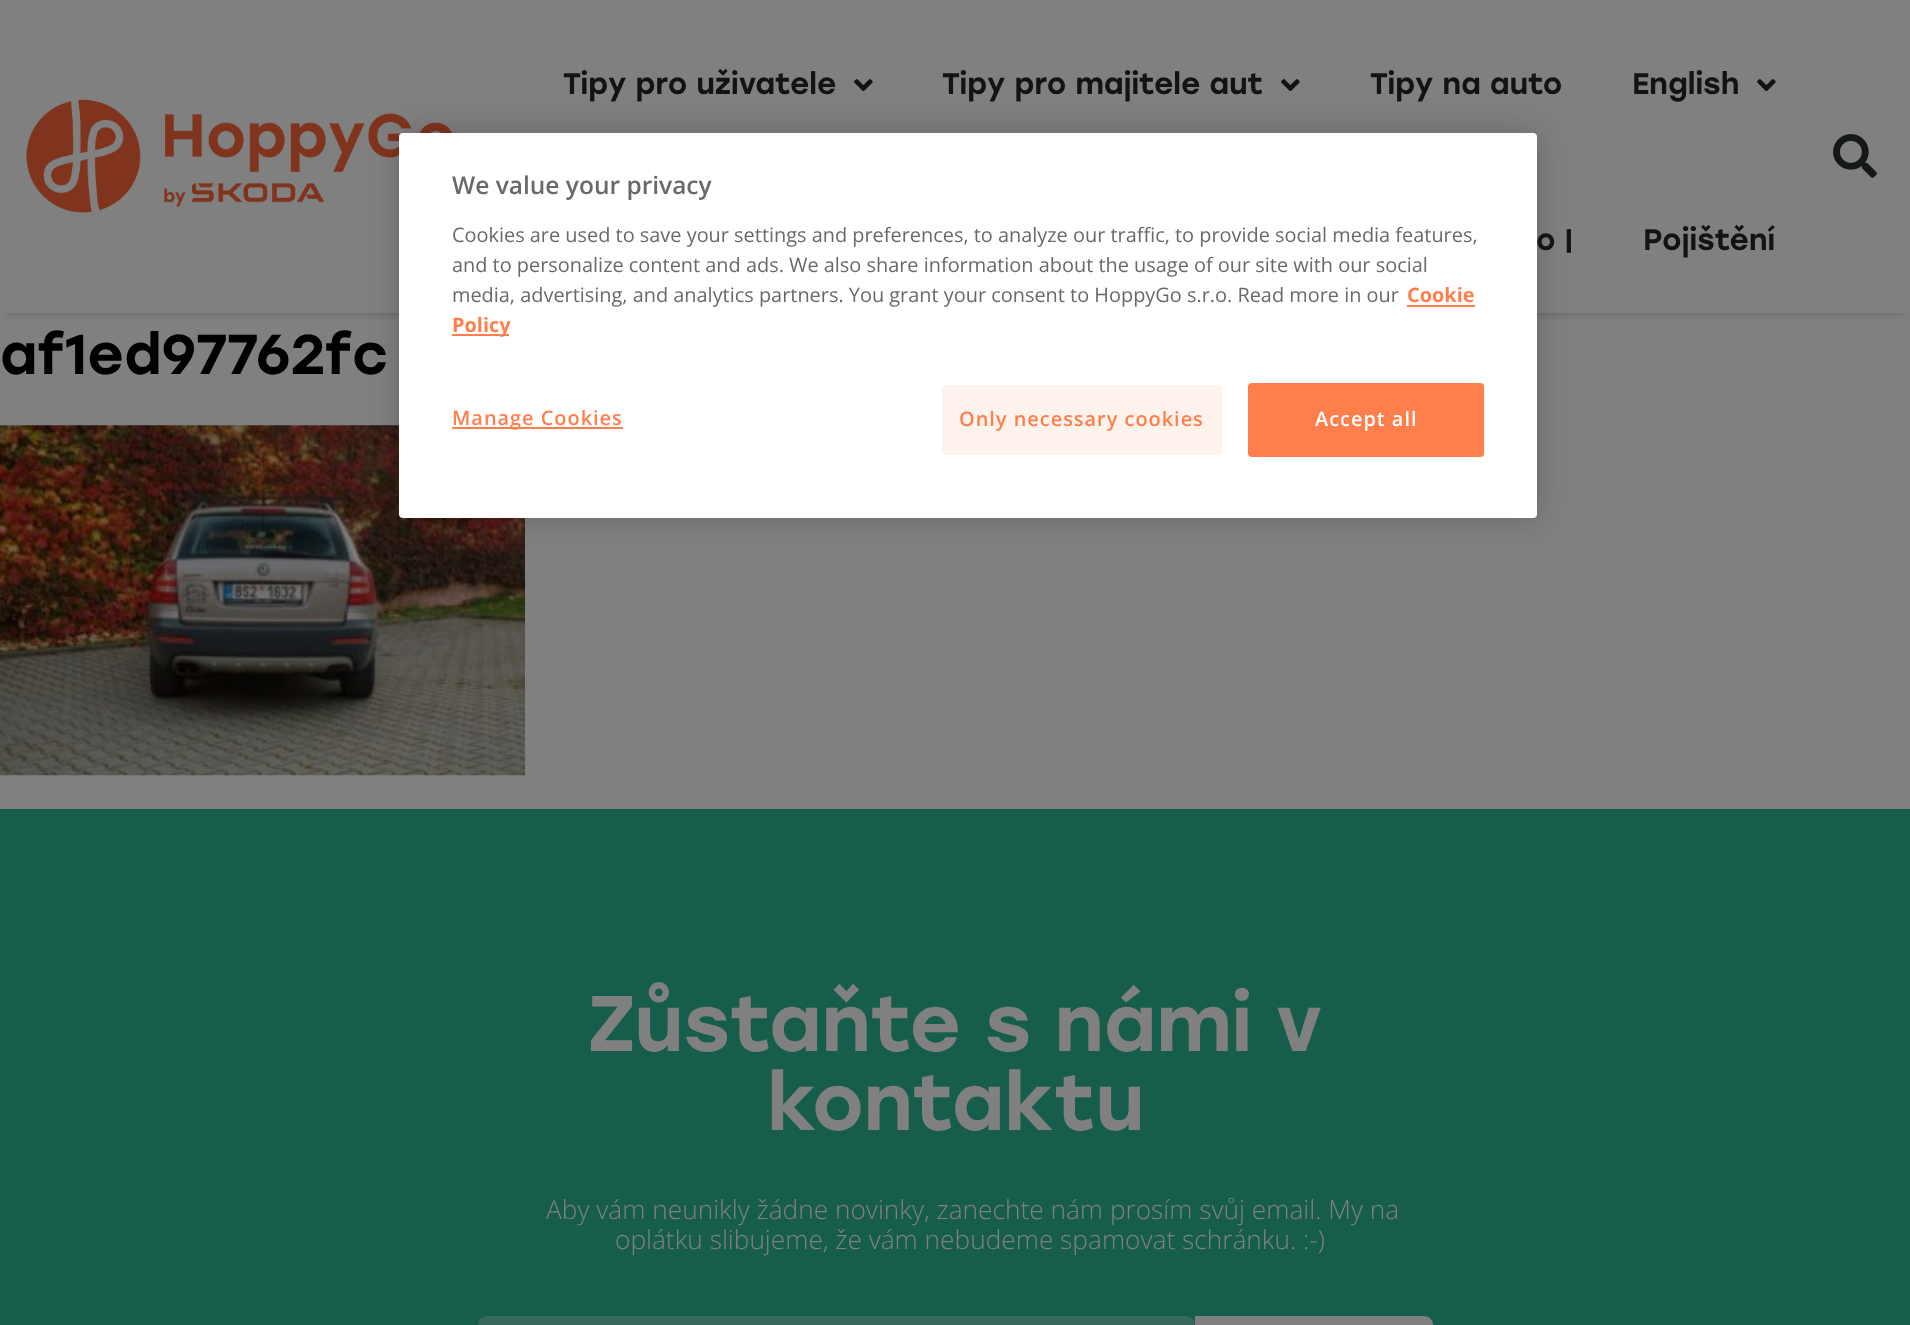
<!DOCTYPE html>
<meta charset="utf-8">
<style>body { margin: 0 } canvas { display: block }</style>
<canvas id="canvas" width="1910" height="1325"></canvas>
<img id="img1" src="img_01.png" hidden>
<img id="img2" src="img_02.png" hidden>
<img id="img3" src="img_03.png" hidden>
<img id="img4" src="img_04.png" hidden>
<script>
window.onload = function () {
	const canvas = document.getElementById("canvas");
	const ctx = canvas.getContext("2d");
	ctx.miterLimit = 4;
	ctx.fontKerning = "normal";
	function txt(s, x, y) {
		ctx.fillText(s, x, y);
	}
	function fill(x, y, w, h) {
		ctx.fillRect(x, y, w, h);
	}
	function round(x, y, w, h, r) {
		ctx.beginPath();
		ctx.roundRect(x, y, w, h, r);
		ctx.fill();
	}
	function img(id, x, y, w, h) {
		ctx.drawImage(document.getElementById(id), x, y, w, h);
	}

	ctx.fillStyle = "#808080";
	fill(0, 0, 1910, 1325);
	ctx.save();
	ctx.beginPath();
	ctx.rect(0, 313, 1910, 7);
	ctx.clip();
	ctx.fillStyle = "rgba(0, 0, 0, 0.5)";
	ctx.filter = "blur(7px)";
	ctx.beginPath();
	ctx.rect(5, 5, 1901, 303);
	ctx.fill();
	ctx.filter = "none";
	ctx.restore();
	img("img1", 26, 99, 426, 114);
	img("img2", 854, 79, 19, 13);
	img("img2", 1281, 79, 19, 13);
	img("img2", 1757, 79, 19, 13);
	img("img3", 1833, 134, 44, 44);
	img("img4", 0, 425, 525, 351);
	ctx.fillStyle = "rgba(0, 0, 0, 0.2)";
	ctx.filter = "blur(16px)";
	ctx.beginPath();
	ctx.roundRect(399, 133, 1138, 385, 4);
	ctx.fill();
	ctx.filter = "none";
	ctx.fillStyle = "#FFFFFF";
	round(399, 133, 1138, 385, 4);
	ctx.fillStyle = "#FF7F4C";
	fill(1407, 305, 68, 2);
	fill(452, 334, 57, 2);
	fill(452, 427, 171, 2);
	ctx.fillStyle = "#FEF2ED";
	round(942, 385, 280, 70, 4);
	ctx.fillStyle = "#FF7F4C";
	ctx.beginPath();
	ctx.roundRect(1249, 384, 234, 72, 3);
	ctx.fill();
	ctx.strokeStyle = "#FF7F4C";
	ctx.lineWidth = 2;
	ctx.stroke();
	ctx.fillStyle = "#165E4B";
	fill(0, 809, 1910, 516);
	ctx.fillStyle = "#36685B";
	round(478, 1316, 717, 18, 9);
	ctx.fillStyle = "#808080";
	ctx.beginPath();
	ctx.moveTo(1195, 1316);
	ctx.lineTo(1424, 1316);
	ctx.bezierCurveTo(1429, 1316, 1433, 1320, 1433, 1325);
	ctx.bezierCurveTo(1433, 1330, 1429, 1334, 1424, 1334);
	ctx.lineTo(1195, 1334);
	ctx.closePath();
	ctx.fill();
	ctx.font = "500 29.75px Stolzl";
	ctx.fillStyle = "#131313";
	txt("Tipy pro uživatele", 563, 94);
	txt("Tipy pro majitele aut", 942, 94);
	txt("Tipy na auto", 1370, 94);
	txt("English", 1632, 94);
	txt("o |", 1536, 250);
	txt("Pojištění", 1643, 250);
	ctx.font = "500 56px Stolzl";
	ctx.fillStyle = "#000000";
	txt("af1ed97762fc", 0, 374);
	ctx.font = "600 24.5px Open Sans";
	ctx.fillStyle = "#696969";
	txt("We value your privacy", 452, 194);
	ctx.font = "19.92px Open Sans";
	txt("Cookies are used to save your settings and preferences, to analyze our traffic, to provide social media features,", 452, 242);
	txt("and to personalize content and ads. We also share information about the usage of our site with our social", 452, 272);
	txt("media, advertising, and analytics partners. You grant your consent to HoppyGo s.r.o. Read more in our", 452, 302);
	ctx.font = "bold 19.92px Open Sans";
	ctx.fillStyle = "#FF7F4C";
	txt("Cookie", 1407, 302);
	txt("Policy", 452, 332);
	ctx.letterSpacing = "1px";
	ctx.font = "600 19.92px Open Sans";
	txt("Manage Cookies", 452, 425);
	txt("Only necessary cookies", 959, 426);
	ctx.fillStyle = "#FFFFFF";
	txt("Accept all", 1315, 426);
	ctx.letterSpacing = "0px";
	ctx.font = "500 78.75px Stolzl";
	ctx.fillStyle = "#808080";
	txt("Zůstaňte s námi v", 588, 1051);
	txt("kontaktu", 767, 1130);
	ctx.font = "300 26.25px Open Sans";
	txt("Aby vám neunikly žádne novinky, zanechte nám prosím svůj email. My na", 546, 1219);
	txt("oplátku slibujeme, že vám nebudeme spamovat schránku. :-)", 615, 1249);
};
</script>
